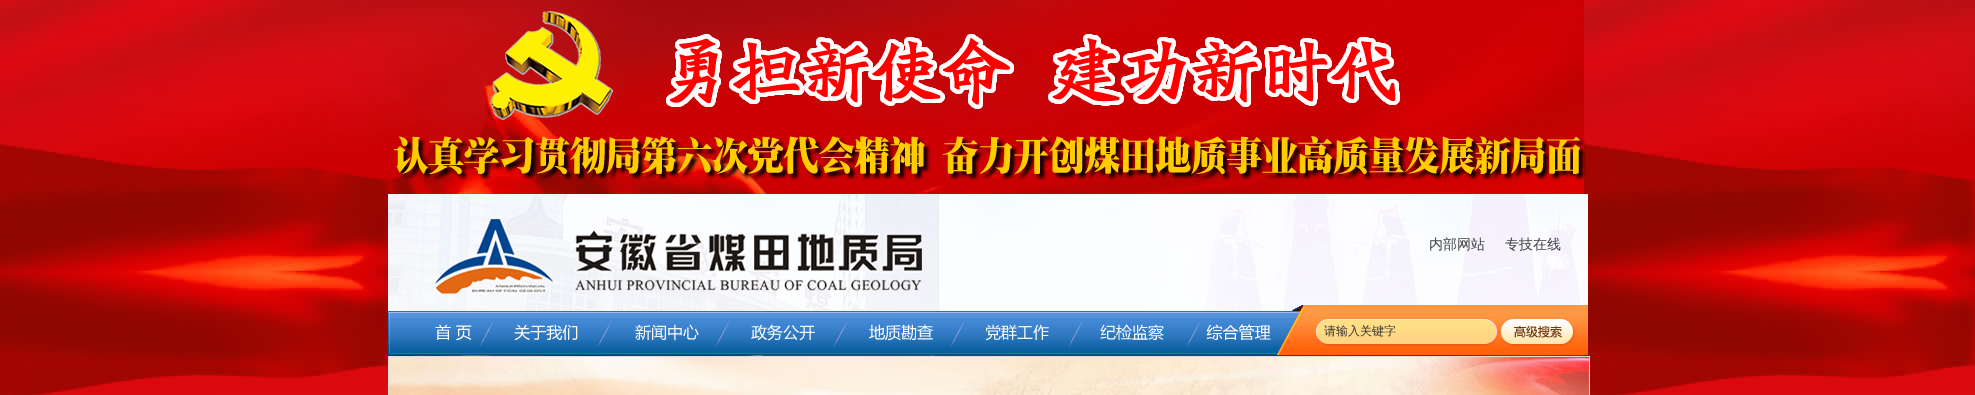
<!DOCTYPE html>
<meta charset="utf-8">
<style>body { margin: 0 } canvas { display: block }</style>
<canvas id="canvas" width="1975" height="395"></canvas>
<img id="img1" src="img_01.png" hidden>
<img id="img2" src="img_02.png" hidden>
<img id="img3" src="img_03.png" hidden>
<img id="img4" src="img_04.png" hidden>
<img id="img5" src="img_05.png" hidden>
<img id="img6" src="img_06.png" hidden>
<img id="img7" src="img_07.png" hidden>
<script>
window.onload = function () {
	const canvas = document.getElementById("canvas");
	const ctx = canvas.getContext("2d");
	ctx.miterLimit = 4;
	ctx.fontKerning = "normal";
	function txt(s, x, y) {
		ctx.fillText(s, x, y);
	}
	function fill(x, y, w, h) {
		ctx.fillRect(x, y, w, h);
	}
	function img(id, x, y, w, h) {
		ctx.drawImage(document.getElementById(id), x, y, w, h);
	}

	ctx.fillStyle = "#FFFFFF";
	fill(0, 0, 1975, 395);
	img("img1", 0, 0, 1975, 395);
	img("img2", 393, 11, 1193, 170);
	img("img3", 388, 194, 1200, 117);
	img("img4", 434, 219, 488, 75);
	img("img5", 1292, 305, 296, 6);
	img("img6", 388, 311, 1200, 44);
	ctx.strokeStyle = "#DDDDDD";
	ctx.strokeRect(388.5, 356.5, 1201, 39);
	img("img7", 389, 357, 1200, 38);
	ctx.font = "500 14px WenQuanYi Zen Hei";
	ctx.fillStyle = "#444444";
	txt("内部网站", 1429, 249);
	txt("专技在线", 1505, 249);
	ctx.font = "500 12px WenQuanYi Zen Hei";
	ctx.fillStyle = "#333333";
	txt("请输入关键字", 1324, 335);
};
</script>
